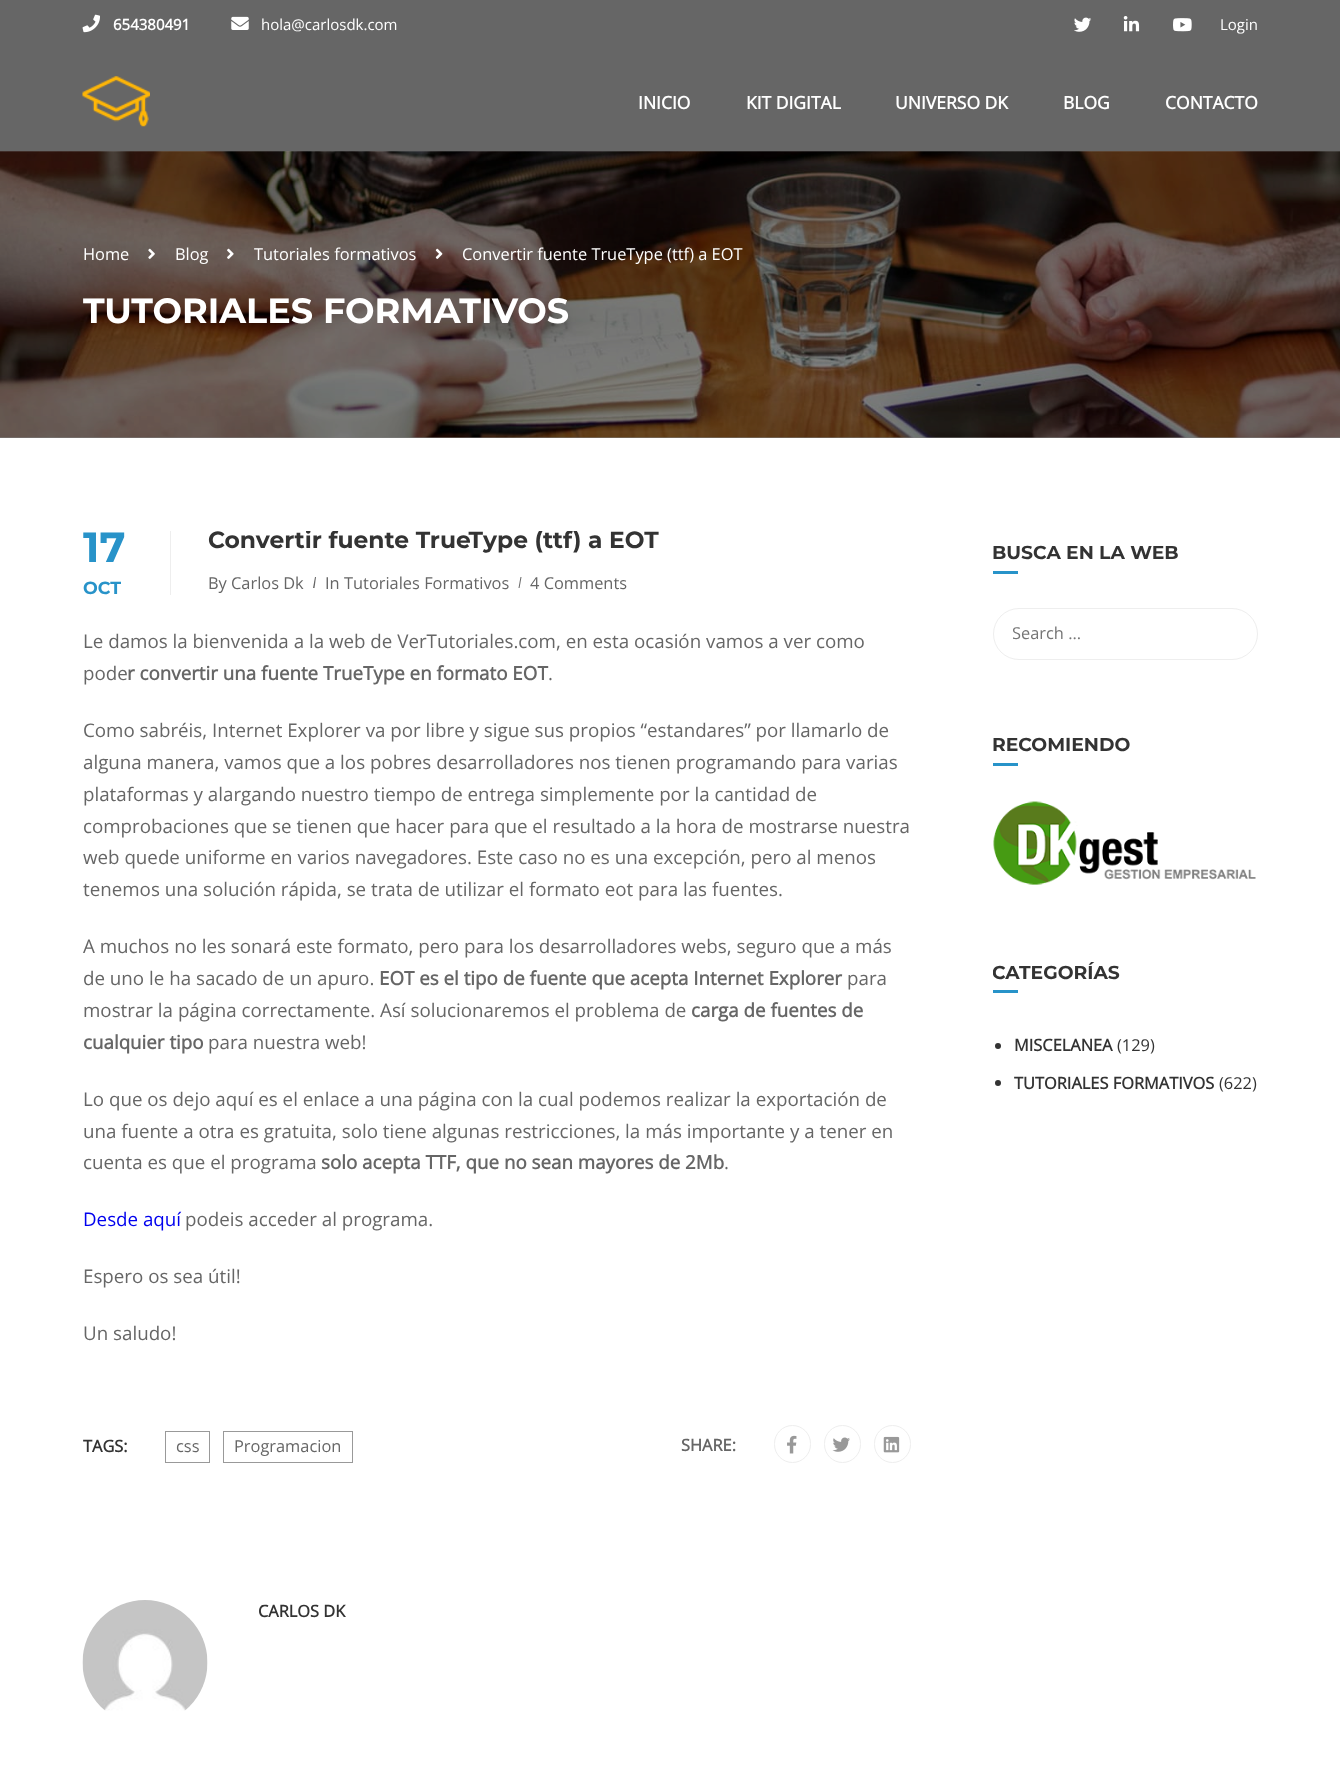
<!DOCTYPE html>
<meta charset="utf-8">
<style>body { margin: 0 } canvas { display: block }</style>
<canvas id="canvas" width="1340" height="1771"></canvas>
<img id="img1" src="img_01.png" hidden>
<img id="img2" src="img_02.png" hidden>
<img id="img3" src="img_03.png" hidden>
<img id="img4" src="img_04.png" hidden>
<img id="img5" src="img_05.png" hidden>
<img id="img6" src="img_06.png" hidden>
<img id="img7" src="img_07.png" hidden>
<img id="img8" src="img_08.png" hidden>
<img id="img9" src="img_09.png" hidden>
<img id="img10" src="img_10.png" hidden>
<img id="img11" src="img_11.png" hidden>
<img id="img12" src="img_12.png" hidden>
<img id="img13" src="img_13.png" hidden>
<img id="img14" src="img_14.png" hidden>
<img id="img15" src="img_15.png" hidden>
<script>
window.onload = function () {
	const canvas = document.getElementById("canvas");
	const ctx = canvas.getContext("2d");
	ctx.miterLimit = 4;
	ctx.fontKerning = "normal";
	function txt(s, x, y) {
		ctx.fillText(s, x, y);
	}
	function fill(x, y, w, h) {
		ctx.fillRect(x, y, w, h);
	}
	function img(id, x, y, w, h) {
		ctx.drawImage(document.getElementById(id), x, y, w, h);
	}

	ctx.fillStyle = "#FFFFFF";
	fill(0, 0, 1340, 1771);
	ctx.fillStyle = "#808080";
	fill(0, 151, 1340, 287);
	ctx.fillStyle = "#666666";
	fill(0, 0, 1340, 151);
	img("img1", 82, 14, 18, 19);
	img("img2", 231, 16, 18, 14);
	img("img3", 1074, 17, 18, 15);
	img("img4", 1123, 16, 17, 16);
	img("img5", 1173, 18, 19, 14);
	img("img6", 82, 76, 68, 51);
	img("img7", 0, 151, 1340, 287);
	img("img8", 148, 248, 7, 11);
	img("img9", 227, 248, 7, 11);
	img("img10", 435, 248, 8, 11);
	ctx.fillStyle = "#EEEEEE";
	fill(170, 531, 1, 64);
	ctx.fillStyle = "#666666";
	ctx.beginPath();
	ctx.moveTo(315, 577);
	ctx.lineTo(316, 577);
	ctx.lineTo(314.5, 588);
	ctx.lineTo(313, 588);
	ctx.closePath();
	ctx.fill();
	ctx.beginPath();
	ctx.moveTo(520.5, 577);
	ctx.lineTo(521.5, 577);
	ctx.lineTo(519.5, 588);
	ctx.lineTo(518.5, 588);
	ctx.closePath();
	ctx.fill();
	ctx.strokeStyle = "#999999";
	ctx.strokeRect(165.5, 1431.5, 44, 31);
	ctx.strokeRect(223.5, 1431.5, 129, 31);
	ctx.beginPath();
	ctx.roundRect(774.5, 1425.5, 36, 37, 18);
	ctx.strokeStyle = "#EEEEEE";
	ctx.stroke();
	img("img11", 787, 1435, 10, 19);
	ctx.beginPath();
	ctx.roundRect(824.5, 1425.5, 36, 37, 18);
	ctx.stroke();
	img("img12", 832, 1437, 18, 15);
	ctx.beginPath();
	ctx.roundRect(874.5, 1425.5, 36, 37, 18);
	ctx.stroke();
	img("img13", 883, 1436, 17, 17);
	img("img14", 82, 1600, 126, 111);
	ctx.fillStyle = "#2893C9";
	fill(993, 571, 25, 3);
	ctx.beginPath();
	ctx.roundRect(993.5, 608.5, 264, 51, 25.5);
	ctx.stroke();
	fill(993, 763, 25, 3);
	img("img15", 993, 801, 263, 84);
	fill(993, 990, 25, 3);
	ctx.fillStyle = "#333333";
	ctx.beginPath();
	ctx.arc(998, 1046, 3, 0, Math.PI * 2);
	ctx.fill();
	ctx.beginPath();
	ctx.arc(998, 1083, 3, 0, Math.PI * 2);
	ctx.fill();
	ctx.font = "bold 15px Open Sans";
	ctx.fillStyle = "#FFFFFF";
	txt("654380491", 113, 30);
	ctx.font = "15px Open Sans";
	txt("hola@carlosdk.com", 261, 30);
	txt("Login", 1220, 30);
	ctx.font = "bold 17.5px Open Sans";
	txt("INICIO", 638, 109);
	txt("KIT DIGITAL", 746, 109);
	txt("UNIVERSO DK", 895, 109);
	txt("BLOG", 1063, 109);
	txt("CONTACTO", 1165, 109);
	ctx.font = "16.4px Open Sans";
	txt("Home", 83, 260);
	txt("Blog", 175, 260);
	txt("Tutoriales formativos", 254, 260);
	txt("Convertir fuente TrueType (ttf) a EOT", 462, 260);
	ctx.font = "bold 35px Montserrat";
	txt("TUTORIALES FORMATIVOS", 83, 323);
	ctx.save();
	ctx.beginPath();
	ctx.rect(83, 531, 828, 64);
	ctx.clip();
	ctx.font = "bold 42px Montserrat";
	ctx.fillStyle = "#2893C9";
	txt("17", 83, 562);
	ctx.restore();
	ctx.font = "bold 17.5px Montserrat";
	ctx.fillStyle = "#2893C9";
	txt("OCT", 83, 594);
	ctx.save();
	ctx.beginPath();
	ctx.rect(83, 531, 828, 64);
	ctx.clip();
	ctx.font = "bold 23.4px Montserrat";
	ctx.fillStyle = "#333333";
	txt("Convertir fuente TrueType (ttf) a EOT", 208, 548);
	ctx.restore();
	ctx.font = "16.4px Open Sans";
	ctx.fillStyle = "#666666";
	txt("By", 208, 589);
	txt("Carlos Dk", 231, 589);
	txt("In", 325, 589);
	txt("Tutoriales Formativos", 344, 589);
	txt("4 Comments", 530, 589);
	ctx.font = "18.75px Open Sans";
	txt("Le damos la bienvenida a la web de VerTutoriales.com, en esta ocasión vamos a ver como", 83, 648);
	txt("pode", 83, 680);
	ctx.font = "bold 18.75px Open Sans";
	txt("r convertir una fuente TrueType en formato EOT", 127, 680);
	ctx.font = "18.75px Open Sans";
	txt(".", 548, 680);
	txt("Como sabréis, Internet Explorer va por libre y sigue sus propios “estandares” por llamarlo de", 83, 737);
	txt("alguna manera, vamos que a los pobres desarrolladores nos tienen programando para varias", 83, 769);
	txt("plataformas y alargando nuestro tiempo de entrega simplemente por la cantidad de", 83, 801);
	txt("comprobaciones que se tienen que hacer para que el resultado a la hora de mostrarse nuestra", 83, 833);
	txt("web quede uniforme en varios navegadores. Este caso no es una excepción, pero al menos", 83, 864);
	txt("tenemos una solución rápida, se trata de utilizar el formato eot para las fuentes.", 83, 896);
	txt("A muchos no les sonará este formato, pero para los desarrolladores webs, seguro que a más", 83, 953);
	txt("de uno le ha sacado de un apuro.", 83, 985);
	ctx.font = "bold 18.75px Open Sans";
	txt("EOT es el tipo de fuente que acepta Internet Explorer", 379, 985);
	ctx.font = "18.75px Open Sans";
	txt("para", 847, 985);
	txt("mostrar la página correctamente. Así solucionaremos el problema de", 83, 1017);
	ctx.font = "bold 18.75px Open Sans";
	txt("carga de fuentes de", 691, 1017);
	txt("cualquier tipo", 83, 1049);
	ctx.font = "18.75px Open Sans";
	txt("para nuestra web!", 208, 1049);
	txt("Lo que os dejo aquí es el enlace a una página con la cual podemos realizar la exportación de", 83, 1106);
	txt("una fuente a otra es gratuita, solo tiene algunas restricciones, la más importante y a tener en", 83, 1138);
	txt("cuenta es que el programa", 83, 1169);
	ctx.font = "bold 18.75px Open Sans";
	txt("solo acepta TTF, que no sean mayores de 2Mb", 321, 1169);
	ctx.font = "18.75px Open Sans";
	txt(".", 724, 1169);
	ctx.fillStyle = "#0000EE";
	txt("Desde aquí", 83, 1226);
	ctx.fillStyle = "#666666";
	txt("podeis acceder al programa.", 185, 1226);
	txt("Espero os sea útil!", 83, 1283);
	txt("Un saludo!", 83, 1340);
	ctx.font = "bold 16.4px Open Sans";
	ctx.fillStyle = "#333333";
	txt("TAGS:", 83, 1452);
	ctx.font = "16.4px Open Sans";
	ctx.fillStyle = "#666666";
	txt("css", 176, 1452);
	txt("Programacion", 234, 1452);
	ctx.font = "bold 16.4px Open Sans";
	txt("SHARE:", 681, 1451);
	ctx.fillStyle = "#333333";
	txt("CARLOS DK", 258, 1617);
	ctx.font = "bold 18.75px Montserrat";
	txt("BUSCA EN LA WEB", 992, 559);
	ctx.save();
	ctx.beginPath();
	ctx.rect(1013, 623, 163, 22);
	ctx.clip();
	ctx.font = "16.4px Open Sans";
	ctx.fillStyle = "#757575";
	txt("Search ...", 1012, 639);
	ctx.restore();
	txt("RECOMIENDO", 992, 751);
	ctx.save();
	ctx.beginPath();
	ctx.rect(993, 950, 265, 160);
	ctx.clip();
	txt("CATEGORÍAS", 992, 979);
	ctx.restore();
	ctx.font = "bold 16.4px Open Sans";
	txt("MISCELANEA", 1014, 1051);
	ctx.font = "16.4px Open Sans";
	txt("(129)", 1117, 1051);
	ctx.font = "bold 16.4px Open Sans";
	txt("TUTORIALES FORMATIVOS", 1014, 1089);
	ctx.font = "16.4px Open Sans";
	txt("(622)", 1219, 1089);
};
</script>
